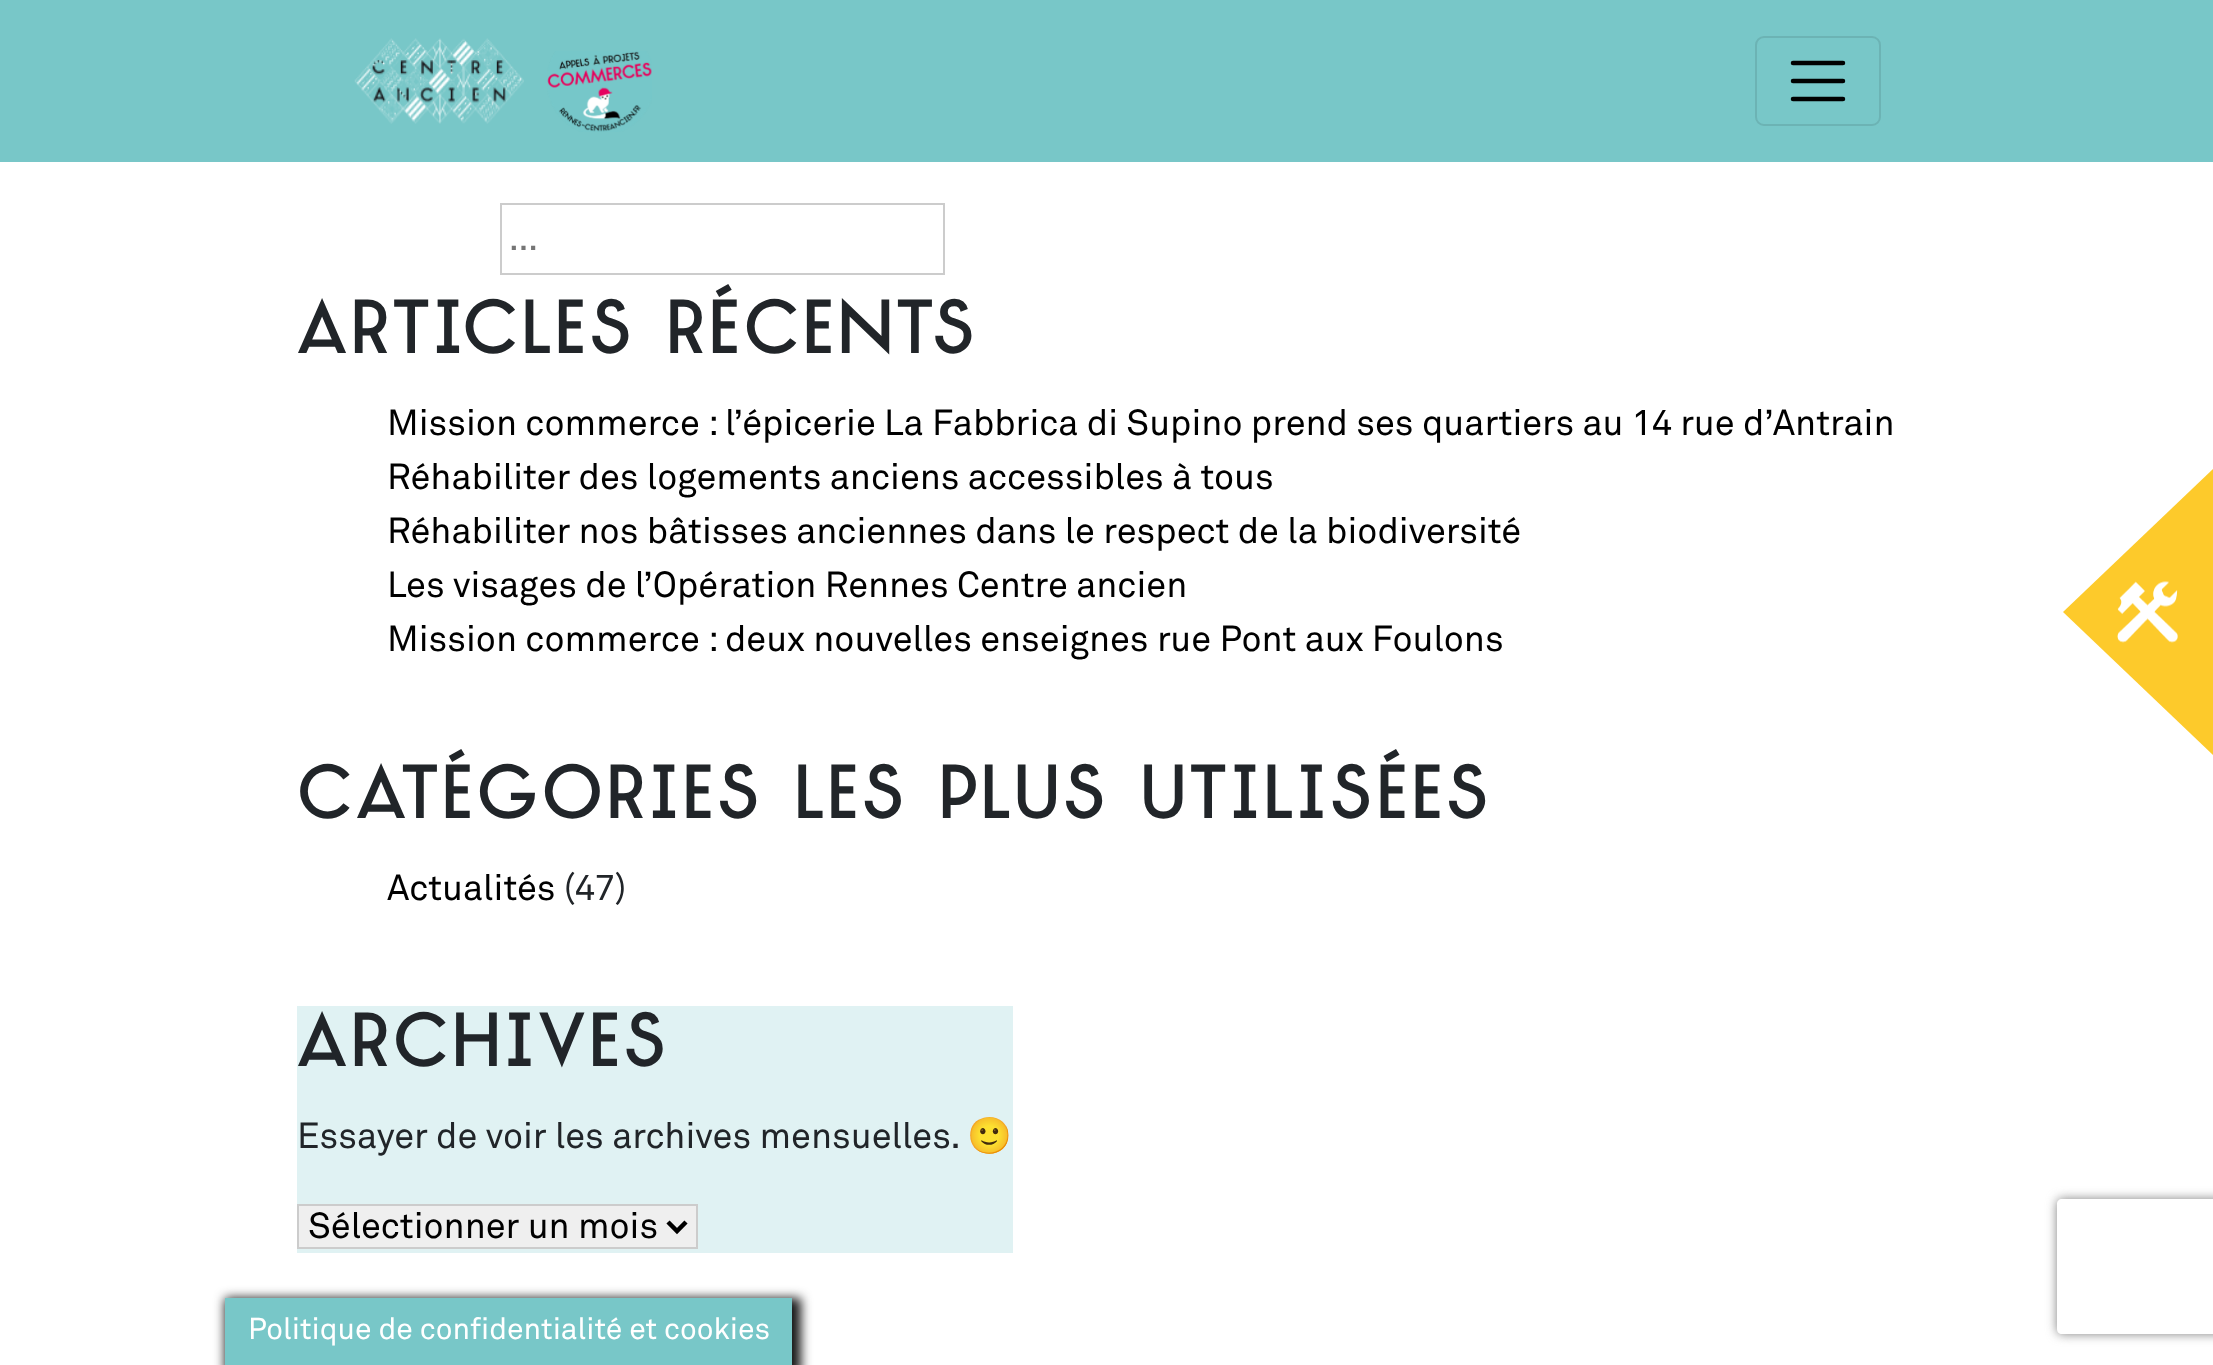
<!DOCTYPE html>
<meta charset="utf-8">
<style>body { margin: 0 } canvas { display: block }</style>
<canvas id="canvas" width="2213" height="1365"></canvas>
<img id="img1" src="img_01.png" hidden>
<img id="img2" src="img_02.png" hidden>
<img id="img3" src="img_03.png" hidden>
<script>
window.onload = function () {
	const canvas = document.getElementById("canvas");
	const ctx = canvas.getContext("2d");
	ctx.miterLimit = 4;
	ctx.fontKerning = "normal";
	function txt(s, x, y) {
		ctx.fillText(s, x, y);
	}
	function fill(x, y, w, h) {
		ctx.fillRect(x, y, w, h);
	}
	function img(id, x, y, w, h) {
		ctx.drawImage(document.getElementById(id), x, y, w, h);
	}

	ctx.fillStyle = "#FFFFFF";
	fill(0, 0, 2213, 1365);
	ctx.fillStyle = "#78C7C8";
	fill(0, 0, 2213, 162);
	img("img1", 354, 38, 170, 86);
	img("img2", 547, 51, 105, 81);
	ctx.beginPath();
	ctx.roundRect(1756, 37, 124, 88, 8);
	ctx.strokeStyle = "#6CB3B4";
	ctx.lineWidth = 2;
	ctx.stroke();
	ctx.beginPath();
	ctx.moveTo(1793, 63);
	ctx.lineTo(1843, 63);
	ctx.moveTo(1793, 81);
	ctx.lineTo(1843, 81);
	ctx.moveTo(1793, 99);
	ctx.lineTo(1843, 99);
	ctx.strokeStyle = "#000000";
	ctx.lineWidth = 4.5;
	ctx.lineCap = "round";
	ctx.stroke();
	ctx.strokeStyle = "#CCCCCC";
	ctx.lineWidth = 2;
	ctx.strokeRect(501, 204, 443, 70);
	ctx.fillStyle = "#E0F2F3";
	fill(297, 1006, 716, 247);
	ctx.fillStyle = "#EFEFEF";
	ctx.beginPath();
	ctx.rect(298, 1205, 399, 43);
	ctx.fill();
	ctx.stroke();
	ctx.beginPath();
	ctx.moveTo(668, 1222);
	ctx.lineTo(677, 1231);
	ctx.lineTo(686, 1222);
	ctx.strokeStyle = "#000000";
	ctx.lineWidth = 4.5;
	ctx.lineCap = "butt";
	ctx.stroke();
	ctx.fillStyle = "#FDCA2B";
	ctx.beginPath();
	ctx.moveTo(2063, 612);
	ctx.lineTo(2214, 756);
	ctx.lineTo(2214, 468);
	ctx.closePath();
	ctx.fill();
	img("img3", 2117, 581, 61, 62);
	ctx.fillStyle = "#161616";
	ctx.filter = "blur(5.5px)";
	ctx.beginPath();
	ctx.rect(225, 1298, 576, 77);
	ctx.fill();
	ctx.filter = "none";
	ctx.fillStyle = "#78C7C8";
	fill(225, 1298, 567, 67);
	ctx.save();
	ctx.beginPath();
	ctx.moveTo(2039, 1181);
	ctx.lineTo(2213, 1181);
	ctx.lineTo(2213, 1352);
	ctx.lineTo(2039, 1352);
	ctx.closePath();
	ctx.moveTo(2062, 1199);
	ctx.lineTo(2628, 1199);
	ctx.bezierCurveTo(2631, 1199, 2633, 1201, 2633, 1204);
	ctx.lineTo(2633, 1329);
	ctx.bezierCurveTo(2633, 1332, 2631, 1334, 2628, 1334);
	ctx.lineTo(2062, 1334);
	ctx.bezierCurveTo(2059, 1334, 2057, 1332, 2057, 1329);
	ctx.lineTo(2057, 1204);
	ctx.bezierCurveTo(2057, 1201, 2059, 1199, 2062, 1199);
	ctx.closePath();
	ctx.clip("evenodd");
	ctx.fillStyle = "#808080";
	ctx.filter = "blur(5.5px)";
	ctx.beginPath();
	ctx.roundRect(2057, 1199, 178, 135, 5);
	ctx.fill();
	ctx.filter = "none";
	ctx.restore();
	ctx.font = "36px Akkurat";
	ctx.fillStyle = "#757575";
	txt("…", 509, 250);
	ctx.letterSpacing = "3.6px";
	ctx.font = "bold 72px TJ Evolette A";
	ctx.fillStyle = "#212529";
	txt("Articles récents", 297, 353);
	ctx.letterSpacing = "0px";
	ctx.font = "36px Akkurat";
	ctx.fillStyle = "#000000";
	txt("Mission commerce : l’épicerie La Fabbrica di Supino prend ses quartiers au 14 rue d’Antrain", 387, 435);
	txt("Réhabiliter des logements anciens accessibles à tous", 387, 489);
	txt("Réhabiliter nos bâtisses anciennes dans le respect de la biodiversité", 387, 543);
	txt("Les visages de l’Opération Rennes Centre ancien", 387, 597);
	txt("Mission commerce : deux nouvelles enseignes rue Pont aux Foulons", 387, 651);
	ctx.letterSpacing = "3.6px";
	ctx.font = "bold 72px TJ Evolette A";
	ctx.fillStyle = "#212529";
	txt("Catégories les plus utilisées", 297, 818);
	ctx.letterSpacing = "0px";
	ctx.font = "36px Akkurat";
	ctx.fillStyle = "#000000";
	txt("Actualités", 387, 900);
	ctx.fillStyle = "#212529";
	txt("(47)", 564, 900);
	ctx.letterSpacing = "3.6px";
	ctx.font = "bold 72px TJ Evolette A";
	txt("Archives", 297, 1066);
	ctx.letterSpacing = "0px";
	ctx.font = "36px Akkurat";
	txt("Essayer de voir les archives mensuelles.", 297, 1148);
	ctx.font = "36px Noto Color Emoji";
	txt("🙂", 967, 1148);
	ctx.font = "36px Akkurat";
	ctx.fillStyle = "#000000";
	txt("Sélectionner un mois", 308, 1238);
	ctx.font = "30px Akkurat";
	ctx.fillStyle = "#FFFFFF";
	txt("Politique de confidentialité et cookies", 248, 1339);
};
</script>
